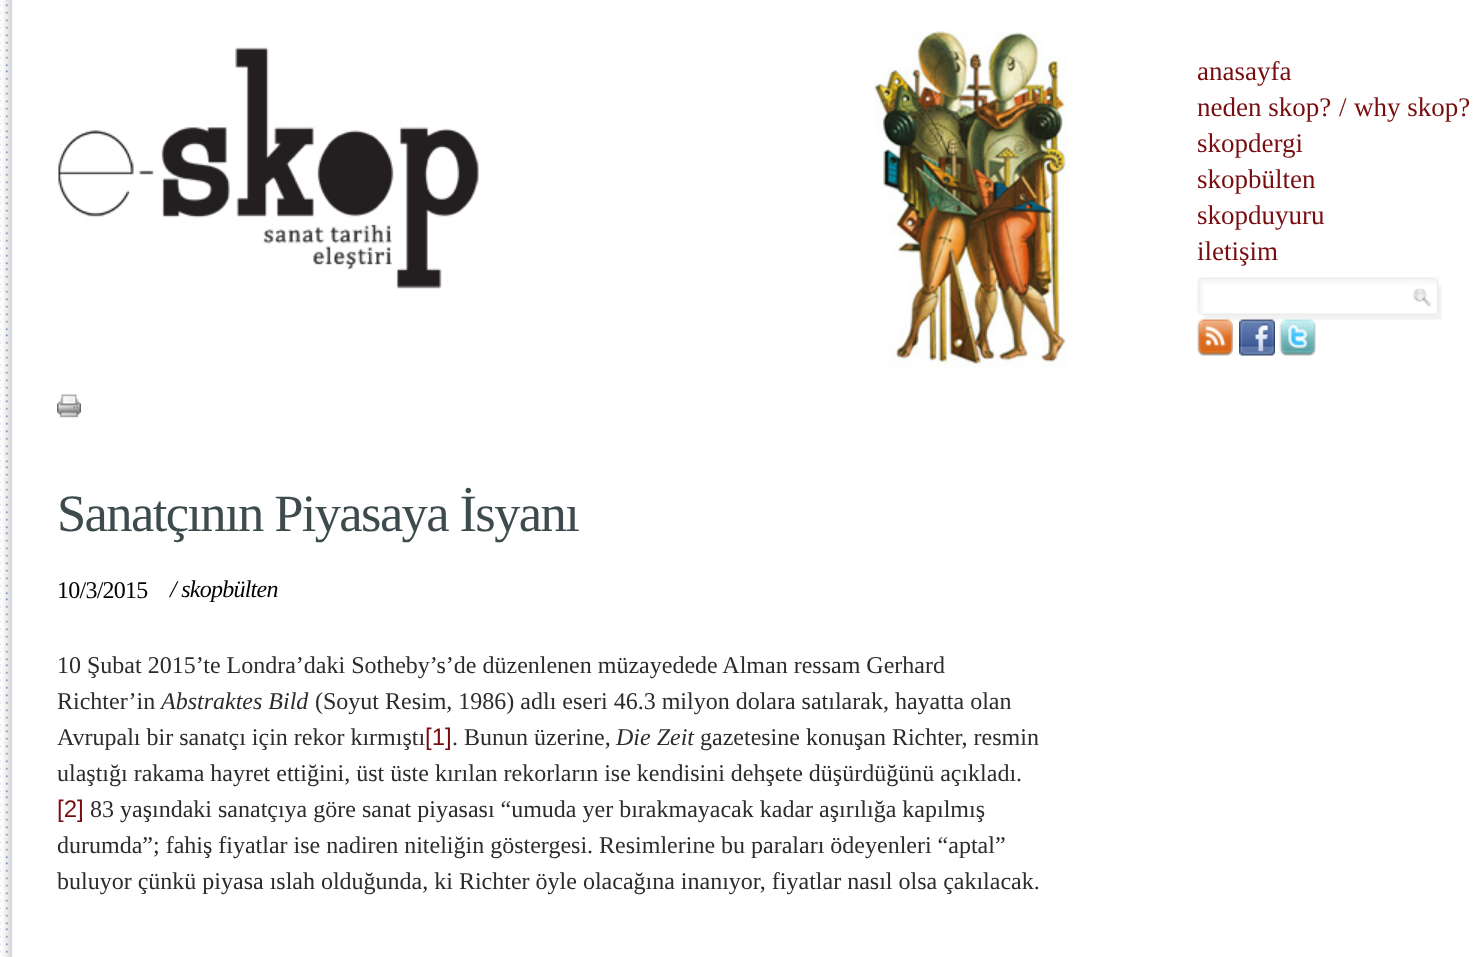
<!DOCTYPE html>
<meta charset="utf-8">
<style>body { margin: 0 } canvas { display: block }</style>
<canvas id="canvas" width="1477" height="957"></canvas>
<img id="img1" src="img_01.png" hidden>
<img id="img2" src="img_02.png" hidden>
<img id="img3" src="img_03.png" hidden>
<img id="img4" src="img_04.png" hidden>
<img id="img5" src="img_05.png" hidden>
<img id="img6" src="img_06.png" hidden>
<img id="img7" src="img_07.png" hidden>
<img id="img8" src="img_08.png" hidden>
<img id="img9" src="img_09.png" hidden>
<img id="img10" src="img_10.png" hidden>
<script>
window.onload = function () {
	const canvas = document.getElementById("canvas");
	const ctx = canvas.getContext("2d");
	ctx.miterLimit = 4;
	ctx.fontKerning = "normal";
	function txt(s, x, y) {
		ctx.fillText(s, x, y);
	}
	function fill(x, y, w, h) {
		ctx.fillRect(x, y, w, h);
	}
	function img(id, x, y, w, h) {
		ctx.drawImage(document.getElementById(id), x, y, w, h);
	}

	ctx.fillStyle = "#FFFFFF";
	fill(0, 0, 1477, 957);
	img("img1", 0, 0, 13, 953);
	img("img2", 1, 0, 1476, 957);
	img("img3", 58, 47, 421, 242);
	img("img4", 874, 31, 193, 337);
	img("img5", 1197, 277, 212, 43);
	img("img6", 1408, 277, 34, 43);
	img("img7", 1197, 319, 36, 37);
	img("img8", 1239, 319, 36, 37);
	img("img9", 1279, 319, 37, 37);
	img("img10", 57, 394, 24, 24);
	ctx.font = "27px Liberation Serif";
	ctx.fillStyle = "#770D0F";
	txt("anasayfa", 1197, 80);
	txt("neden skop?", 1197, 116);
	txt("/", 1339, 116);
	txt("why skop?", 1354, 116);
	txt("skopdergi", 1197, 152);
	txt("skopbülten", 1197, 188);
	txt("skopduyuru", 1197, 224);
	txt("iletişim", 1197, 260);
	ctx.letterSpacing = "-1.6px";
	ctx.font = "52.5px Liberation Serif";
	ctx.fillStyle = "#3E4B4D";
	txt("Sanatçının Piyasaya İsyanı", 57, 531);
	ctx.letterSpacing = "-0.75px";
	ctx.font = "24px Liberation Serif";
	ctx.fillStyle = "#000000";
	txt("10/3/2015", 57, 598);
	ctx.font = "italic 24px Liberation Serif";
	txt("/ skopbülten", 170, 597);
	ctx.letterSpacing = "0px";
	ctx.font = "24px Liberation Serif";
	ctx.fillStyle = "#2D2C2C";
	txt("10 Şubat 2015’te Londra’daki Sotheby’s’de düzenlenen müzayedede Alman ressam Gerhard", 57, 673);
	txt("Richter’in", 57, 709);
	ctx.font = "italic 24px Liberation Serif";
	txt("Abstraktes Bild", 161, 709);
	ctx.font = "24px Liberation Serif";
	txt("(Soyut Resim, 1986) adlı eseri 46.3 milyon dolara satılarak, hayatta olan", 315, 709);
	txt("Avrupalı bir sanatçı için rekor kırmıştı", 57, 745);
	ctx.font = "24px Liberation Sans";
	ctx.fillStyle = "#770D0F";
	txt("[1]", 425, 745);
	ctx.font = "24px Liberation Serif";
	ctx.fillStyle = "#2D2C2C";
	txt(". Bunun üzerine,", 452, 745);
	ctx.font = "italic 24px Liberation Serif";
	txt("Die Zeit", 616, 745);
	ctx.font = "24px Liberation Serif";
	txt("gazetesine konuşan Richter, resmin", 700, 745);
	txt("ulaştığı rakama hayret ettiğini, üst üste kırılan rekorların ise kendisini dehşete düşürdüğünü açıkladı.", 57, 781);
	ctx.font = "24px Liberation Sans";
	ctx.fillStyle = "#770D0F";
	txt("[2]", 57, 817);
	ctx.font = "24px Liberation Serif";
	ctx.fillStyle = "#2D2C2C";
	txt("83 yaşındaki sanatçıya göre sanat piyasası “umuda yer bırakmayacak kadar aşırılığa kapılmış", 90, 817);
	txt("durumda”; fahiş fiyatlar ise nadiren niteliğin göstergesi. Resimlerine bu paraları ödeyenleri “aptal”", 57, 853);
	txt("buluyor çünkü piyasa ıslah olduğunda, ki Richter öyle olacağına inanıyor, fiyatlar nasıl olsa çakılacak.", 57, 889);
};
</script>
